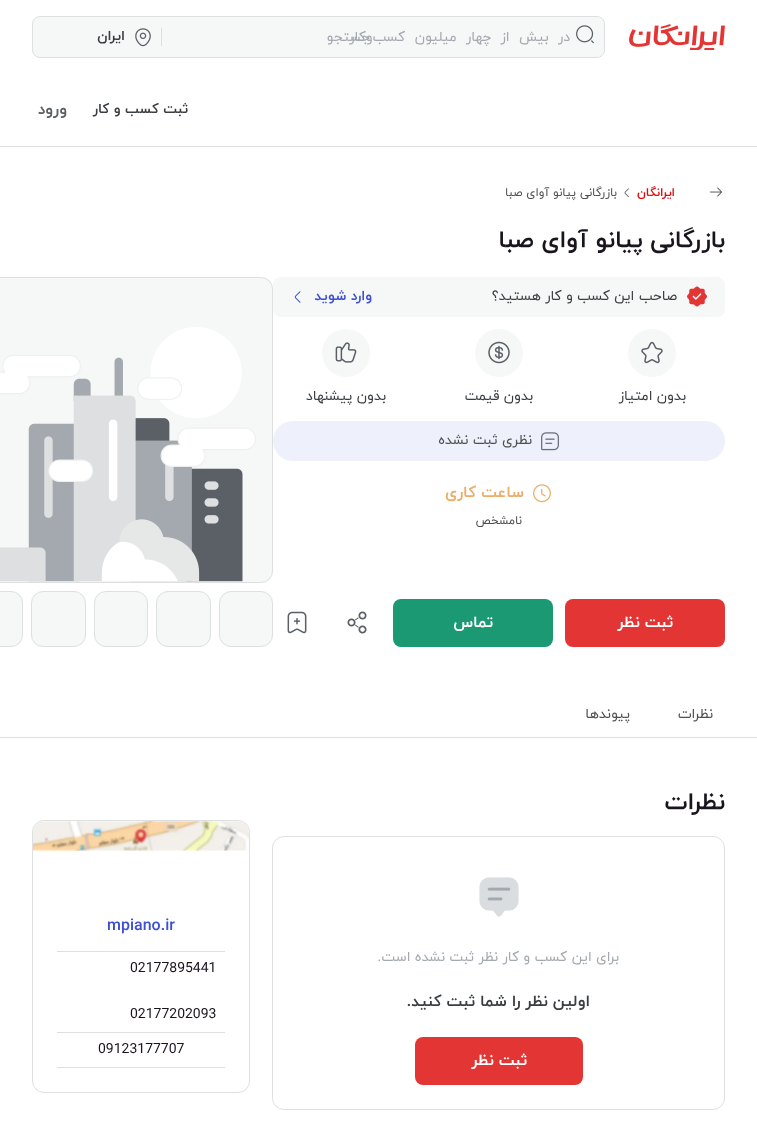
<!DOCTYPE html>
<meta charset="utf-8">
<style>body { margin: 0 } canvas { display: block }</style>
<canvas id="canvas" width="757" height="1125"></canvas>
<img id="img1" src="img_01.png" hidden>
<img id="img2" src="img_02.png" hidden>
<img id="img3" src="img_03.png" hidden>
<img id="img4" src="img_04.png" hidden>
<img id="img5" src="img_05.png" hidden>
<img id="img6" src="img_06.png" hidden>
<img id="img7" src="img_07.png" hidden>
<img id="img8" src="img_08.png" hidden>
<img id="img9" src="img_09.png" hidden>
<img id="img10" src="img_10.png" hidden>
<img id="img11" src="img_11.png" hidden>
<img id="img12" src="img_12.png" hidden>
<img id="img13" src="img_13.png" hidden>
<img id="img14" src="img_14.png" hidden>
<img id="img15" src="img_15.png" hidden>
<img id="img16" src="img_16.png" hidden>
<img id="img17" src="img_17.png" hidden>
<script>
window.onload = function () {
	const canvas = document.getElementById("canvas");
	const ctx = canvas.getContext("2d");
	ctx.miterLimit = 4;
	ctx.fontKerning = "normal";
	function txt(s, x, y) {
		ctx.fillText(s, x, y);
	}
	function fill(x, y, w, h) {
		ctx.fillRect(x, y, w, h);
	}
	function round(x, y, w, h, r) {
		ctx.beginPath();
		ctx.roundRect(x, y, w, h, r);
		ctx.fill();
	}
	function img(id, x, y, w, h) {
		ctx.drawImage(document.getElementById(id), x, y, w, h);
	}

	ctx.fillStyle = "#FFFFFF";
	fill(0, 0, 757, 1125);
	ctx.fillStyle = "#DDDFE1";
	fill(0, 146, 757, 1);
	img("img1", 629, 24, 96, 26);
	ctx.fillStyle = "#F6F7F7";
	ctx.beginPath();
	ctx.roundRect(32.5, 16.5, 572, 41, 7.5);
	ctx.fill();
	ctx.strokeStyle = "#DDDFE1";
	ctx.stroke();
	round(162, 17, 442, 40, 7);
	img("img2", 576, 25, 18, 19);
	ctx.fillStyle = "#DDDFE1";
	fill(161, 28, 1, 18);
	img("img3", 135, 28, 16, 19);
	img("img4", 709, 187, 14, 10);
	img("img5", 624, 188, 5, 10);
	ctx.fillStyle = "#F6F7F7";
	round(273, 277, 452, 40, 8);
	img("img6", 687, 286, 20, 21);
	img("img7", 294, 291, 7, 12);
	ctx.beginPath();
	ctx.arc(652, 353, 24, 0, Math.PI * 2);
	ctx.fill();
	img("img8", 641, 341, 22, 23);
	ctx.beginPath();
	ctx.arc(499, 353, 24, 0, Math.PI * 2);
	ctx.fill();
	img("img9", 488, 341, 22, 23);
	ctx.beginPath();
	ctx.arc(346, 353, 24, 0, Math.PI * 2);
	ctx.fill();
	img("img10", 335, 342, 22, 21);
	ctx.fillStyle = "#EEF0FB";
	round(273, 421, 452, 40, 20);
	img("img11", 541, 432, 18, 19);
	img("img12", 533, 484, 18, 19);
	ctx.fillStyle = "#E43535";
	round(565, 599, 160, 48, 8);
	ctx.fillStyle = "#1B9973";
	round(393, 599, 160, 48, 8);
	img("img13", 347, 611, 20, 23);
	img("img14", 287, 611, 20, 23);
	ctx.fillStyle = "#F6F7F7";
	ctx.beginPath();
	ctx.roundRect(0, 277, 273, 306, [0, 12, 12, 0]);
	ctx.fill();
	ctx.beginPath();
	ctx.roundRect(-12.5, 277.5, 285, 305, 11.5);
	ctx.stroke();
	img("img15", 0, 327, 256, 255);
	ctx.beginPath();
	ctx.roundRect(219.5, 591.5, 53, 55, 11.5);
	ctx.fill();
	ctx.stroke();
	ctx.beginPath();
	ctx.roundRect(156.5, 591.5, 54, 55, 11.5);
	ctx.fill();
	ctx.stroke();
	ctx.beginPath();
	ctx.roundRect(94.5, 591.5, 53, 55, 11.5);
	ctx.fill();
	ctx.stroke();
	ctx.beginPath();
	ctx.roundRect(31.5, 591.5, 54, 55, 11.5);
	ctx.fill();
	ctx.stroke();
	ctx.beginPath();
	ctx.roundRect(0, 591, 23, 56, [0, 12, 12, 0]);
	ctx.fill();
	ctx.beginPath();
	ctx.roundRect(-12.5, 591.5, 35, 55, 11.5);
	ctx.stroke();
	ctx.fillStyle = "#DDDFE1";
	fill(0, 737, 757, 1);
	ctx.beginPath();
	ctx.roundRect(272.5, 836.5, 452, 273, 11.5);
	ctx.stroke();
	img("img16", 479, 877, 40, 40);
	ctx.fillStyle = "#E43535";
	round(415, 1037, 168, 48, 8);
	ctx.beginPath();
	ctx.roundRect(32.5, 820.5, 217, 272, 11.5);
	ctx.stroke();
	img("img17", 33, 821, 216, 30);
	ctx.fillStyle = "#DDDFE1";
	fill(57, 951, 168, 1);
	fill(57, 1032, 168, 1);
	fill(57, 1067, 168, 1);
	ctx.direction = "rtl";
	ctx.font = "14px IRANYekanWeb";
	ctx.fillStyle = "#A3A9AE";
	txt("جستجو", 370, 41);
	ctx.wordSpacing = "5px";
	txt("در بیش از چهار میلیون کسب‌وکار", 570, 41);
	ctx.wordSpacing = "0px";
	ctx.font = "bold 14px IRANYekanWeb";
	ctx.fillStyle = "#3A3E42";
	txt("ایران", 125, 40);
	txt("ثبت کسب و کار", 188, 113);
	ctx.font = "bold 16px IRANYekanWeb";
	ctx.fillStyle = "#5A6066";
	txt("ورود", 67, 114);
	ctx.font = "bold 12px IRANYekanWeb";
	ctx.fillStyle = "#DF0D0D";
	txt("ایرانگان", 675, 196);
	ctx.font = "12px IRANYekanWeb";
	ctx.fillStyle = "#505050";
	txt("بازرگانی پیانو آوای صبا", 617, 196);
	ctx.font = "bold 24px IRANYekanWeb";
	ctx.fillStyle = "#1A141F";
	txt("بازرگانی پیانو آوای صبا", 725, 247);
	ctx.font = "14px IRANYekanWeb";
	ctx.fillStyle = "#3A3E42";
	txt("صاحب این کسب و کار هستید؟", 677, 300);
	ctx.font = "bold 14px IRANYekanWeb";
	ctx.fillStyle = "#3D4FD5";
	txt("وارد شوید", 372, 300);
	ctx.font = "14px IRANYekanWeb";
	ctx.fillStyle = "#3A3E42";
	txt("بدون امتیاز", 686, 400);
	txt("بدون قیمت", 533, 400);
	txt("بدون پیشنهاد", 386, 400);
	ctx.fillStyle = "#505050";
	txt("نظری ثبت نشده", 532, 444);
	ctx.font = "bold 16px IRANYekanWeb";
	ctx.fillStyle = "#EBAD67";
	txt("ساعت کاری", 524, 497);
	ctx.font = "12px IRANYekanWeb";
	ctx.fillStyle = "#505050";
	txt("نامشخص", 522, 524);
	ctx.font = "bold 16px IRANYekanWeb";
	ctx.fillStyle = "#FFFFFF";
	txt("ثبت نظر", 673, 627);
	txt("تماس", 493, 627);
	ctx.font = "14px IRANYekanWeb";
	ctx.fillStyle = "#505050";
	txt("نظرات", 713, 718);
	txt("پیوند‌ها", 630, 718);
	ctx.font = "bold 24px IRANYekanWeb";
	ctx.fillStyle = "#1A141F";
	txt("‌نظرات", 725, 809);
	ctx.font = "14px IRANYekanWeb";
	ctx.fillStyle = "#A3A9AE";
	txt("برای این کسب و کار نظر ثبت نشده است.", 619, 961);
	ctx.font = "bold 16px IRANYekanWeb";
	ctx.fillStyle = "#3A3E42";
	txt("اولین نظر را شما ثبت کنید.", 590, 1006);
	ctx.fillStyle = "#FFFFFF";
	txt("ثبت نظر", 527, 1065);
	ctx.direction = "ltr";
	ctx.fillStyle = "#3D4FD5";
	txt("mpiano.ir", 107, 930);
	ctx.font = "14px IRANYekanWeb";
	ctx.fillStyle = "#1A141F";
	txt("02177895441", 130, 972);
	txt("02177202093", 130, 1018);
	txt("09123177707", 98, 1053);
};
</script>
